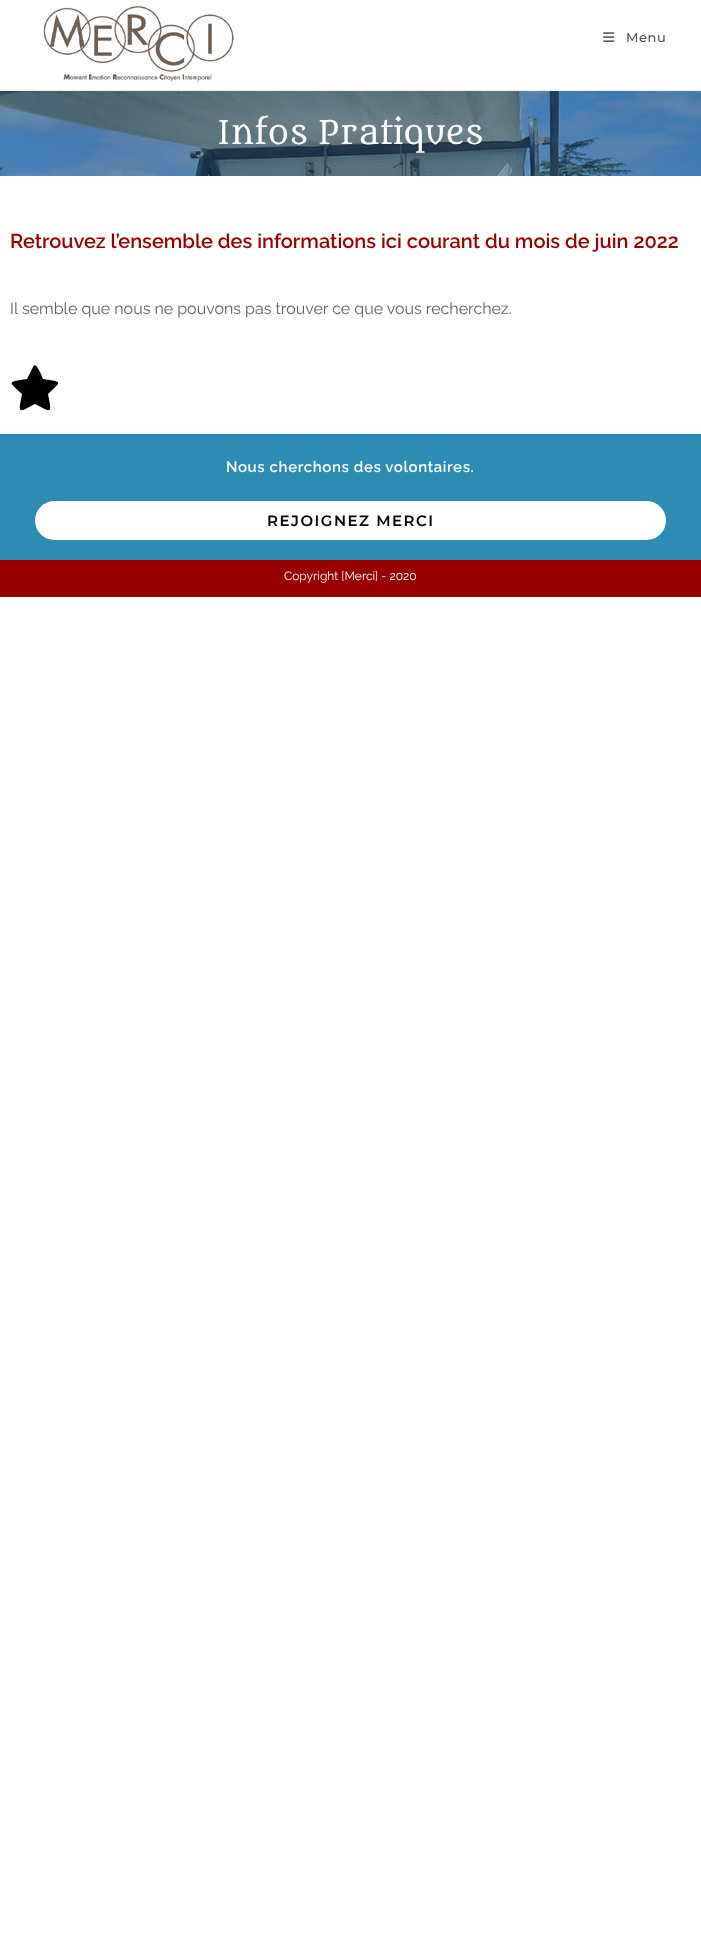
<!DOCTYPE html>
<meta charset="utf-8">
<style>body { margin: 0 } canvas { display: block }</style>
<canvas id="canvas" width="701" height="1939"></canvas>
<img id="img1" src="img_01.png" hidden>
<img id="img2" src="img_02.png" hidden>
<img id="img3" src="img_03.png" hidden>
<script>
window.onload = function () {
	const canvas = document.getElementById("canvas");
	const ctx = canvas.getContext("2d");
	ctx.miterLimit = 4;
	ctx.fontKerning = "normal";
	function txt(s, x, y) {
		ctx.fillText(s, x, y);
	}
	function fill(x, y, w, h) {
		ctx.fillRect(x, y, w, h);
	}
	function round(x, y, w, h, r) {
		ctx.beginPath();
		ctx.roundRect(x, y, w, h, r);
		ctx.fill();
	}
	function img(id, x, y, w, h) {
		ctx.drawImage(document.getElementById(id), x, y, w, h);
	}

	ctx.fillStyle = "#FFFFFF";
	fill(0, 0, 701, 1939);
	ctx.fillStyle = "#F1F1F1";
	fill(0, 90, 701, 1);
	img("img1", 43, 6, 191, 76);
	img("img2", 603, 32, 12, 10);
	img("img3", 0, 91, 701, 85);
	ctx.fillStyle = "#000000";
	ctx.beginPath();
	ctx.moveTo(33, 367);
	ctx.lineTo(27, 379);
	ctx.bezierCurveTo(7, 382, 8, 381, 22, 394);
	ctx.bezierCurveTo(18, 414, 18, 413, 35, 404);
	ctx.bezierCurveTo(52, 413, 52, 414, 48, 394);
	ctx.bezierCurveTo(62, 381, 63, 382, 43, 379);
	ctx.bezierCurveTo(42, 377, 36, 360, 33, 367);
	ctx.closePath();
	ctx.fill();
	ctx.fillStyle = "#2E8BB4";
	fill(0, 434, 701, 126);
	ctx.fillStyle = "#FFFFFF";
	round(35, 501, 631, 39, 19.5);
	ctx.fillStyle = "#980000";
	fill(0, 560, 701, 37);
	ctx.letterSpacing = "0.6px";
	ctx.font = "500 13px Montserrat";
	ctx.fillStyle = "#565656";
	txt("Menu", 626, 42);
	ctx.letterSpacing = "0px";
	ctx.font = "32px Metamorphous";
	ctx.fillStyle = "#FFFFFF";
	txt("Infos Pratiques", 217, 144);
	ctx.font = "600 20px Raleway";
	ctx.fillStyle = "#980000";
	txt("Retrouvez l’ensemble des informations ici courant du mois de juin 2022", 10, 248);
	ctx.font = "16px Raleway";
	ctx.fillStyle = "#606060";
	txt("Il semble que nous ne pouvons pas trouver ce que vous recherchez.", 10, 314);
	ctx.letterSpacing = "0.6px";
	ctx.font = "600 15px Raleway";
	ctx.fillStyle = "#FFFFFF";
	txt("Nous cherchons des volontaires.", 226, 472);
	ctx.letterSpacing = "1.5px";
	ctx.font = "600 15px Montserrat";
	ctx.fillStyle = "#000000";
	txt("REJOIGNEZ MERCI", 267, 526);
	ctx.letterSpacing = "0px";
	ctx.font = "12px Raleway";
	ctx.fillStyle = "#FFFFFF";
	txt("Copyright [Merci] - 2020", 284, 580);
};
</script>
